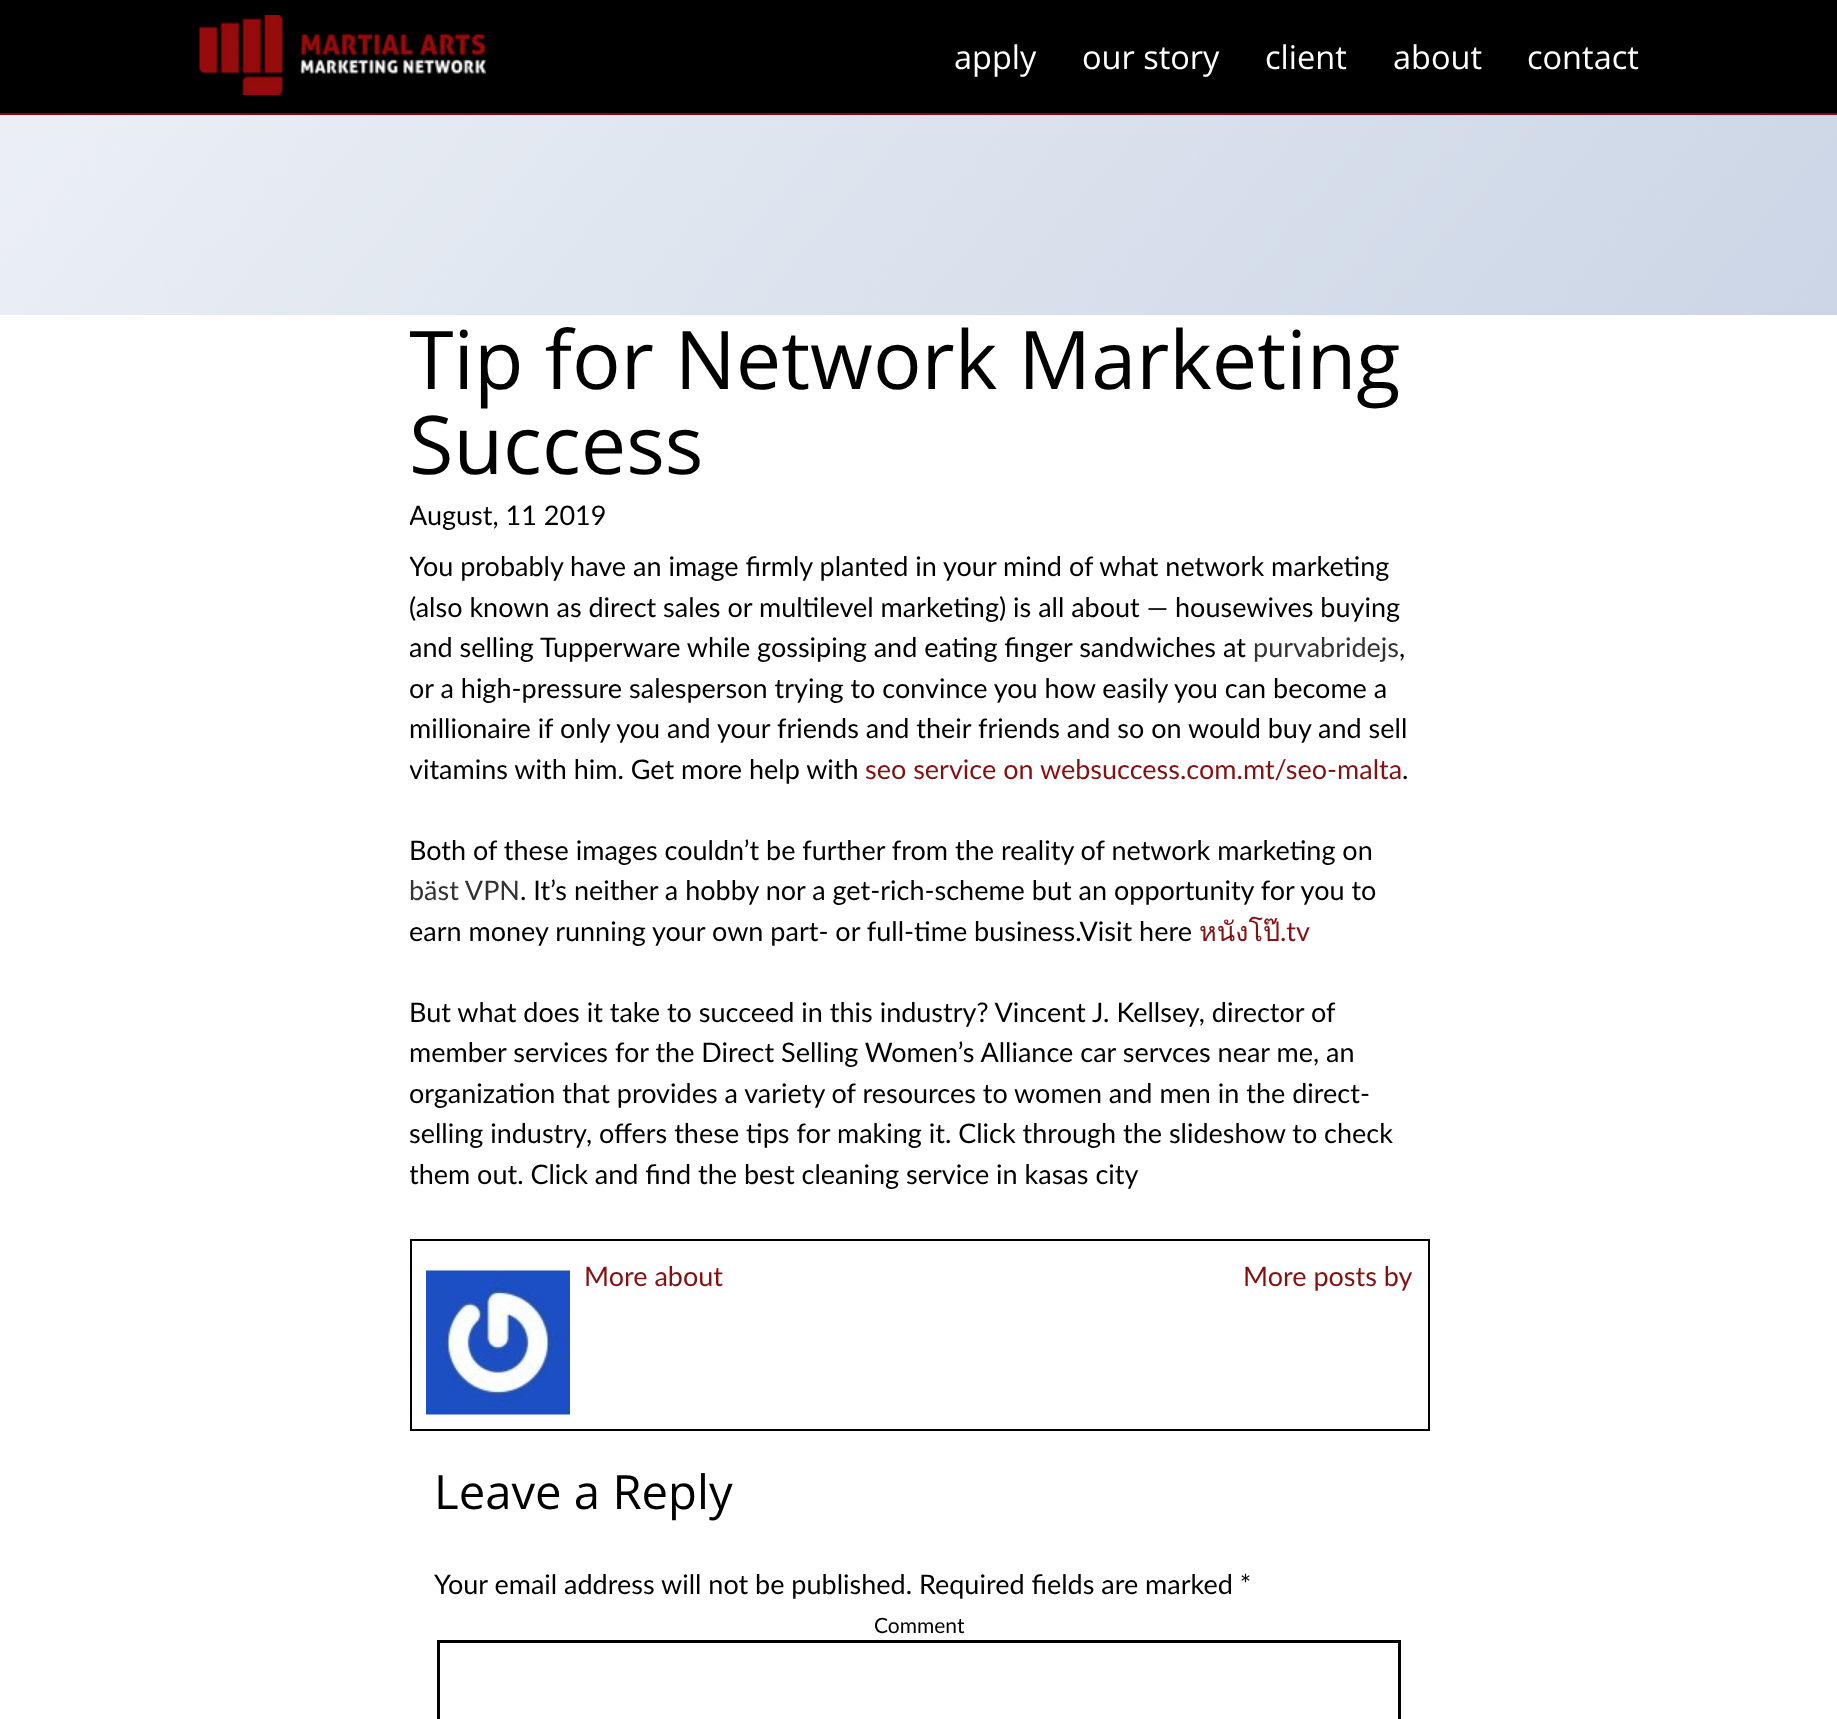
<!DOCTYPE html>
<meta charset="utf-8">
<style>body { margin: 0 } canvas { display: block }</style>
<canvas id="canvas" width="1837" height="1719"></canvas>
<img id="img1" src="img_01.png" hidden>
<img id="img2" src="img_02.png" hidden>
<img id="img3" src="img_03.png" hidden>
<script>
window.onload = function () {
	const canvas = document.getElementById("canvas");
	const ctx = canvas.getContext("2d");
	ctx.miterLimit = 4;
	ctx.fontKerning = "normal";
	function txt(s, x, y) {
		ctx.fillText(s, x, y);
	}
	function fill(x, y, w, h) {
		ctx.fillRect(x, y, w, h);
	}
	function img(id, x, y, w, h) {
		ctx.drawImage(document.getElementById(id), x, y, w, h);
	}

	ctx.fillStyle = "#FFFFFF";
	fill(0, 0, 1837, 1719);
	ctx.fillStyle = "#000000";
	fill(0, 0, 1837, 113);
	ctx.fillStyle = "#870A0A";
	fill(0, 113, 1837, 2);
	img("img1", 199, 15, 287, 80);
	img("img2", 0, 115, 1837, 200);
	ctx.strokeStyle = "#000000";
	ctx.lineWidth = 2;
	ctx.strokeRect(411, 1240, 1018, 190);
	img("img3", 426, 1270, 144, 145);
	ctx.lineWidth = 3;
	ctx.strokeRect(438.5, 1641.5, 961, 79);
	ctx.font = "32.5px Open Sans";
	ctx.fillStyle = "#FFFFFF";
	txt("apply", 954, 69);
	txt("our story", 1082, 69);
	txt("client", 1265, 69);
	txt("about", 1393, 69);
	txt("contact", 1527, 69);
	ctx.save();
	ctx.beginPath();
	ctx.rect(410, 315, 1020, 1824);
	ctx.clip();
	ctx.font = "81px Open Sans";
	ctx.fillStyle = "#000000";
	txt("Tip for Network Marketing", 409, 389);
	ctx.restore();
	ctx.font = "81px Open Sans";
	ctx.fillStyle = "#000000";
	txt("Success", 409, 474);
	ctx.save();
	ctx.beginPath();
	ctx.rect(410, 315, 1020, 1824);
	ctx.clip();
	ctx.font = "27px Lato";
	txt("August, 11 2019", 409, 525);
	txt("You probably have an image firmly planted in your mind of what network marketing", 409, 576);
	ctx.restore();
	ctx.font = "27px Lato";
	txt("(also known as direct sales or multilevel marketing) is all about — housewives buying", 409, 617);
	ctx.save();
	ctx.beginPath();
	ctx.rect(410, 315, 1020, 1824);
	ctx.clip();
	txt("and selling Tupperware while gossiping and eating finger sandwiches at", 409, 657);
	ctx.restore();
	ctx.fillStyle = "#333333";
	txt("purvabridejs", 1253, 657);
	ctx.fillStyle = "#000000";
	txt(",", 1399, 657);
	txt("or a high-pressure salesperson trying to convince you how easily you can become a", 409, 698);
	txt("millionaire if only you and your friends and their friends and so on would buy and sell", 409, 738);
	ctx.save();
	ctx.beginPath();
	ctx.rect(410, 315, 1020, 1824);
	ctx.clip();
	txt("vitamins with him. Get more help with", 409, 779);
	ctx.restore();
	ctx.fillStyle = "#831111";
	txt("seo service on websuccess.com.mt/seo-malta", 865, 779);
	ctx.fillStyle = "#000000";
	txt(".", 1402, 779);
	txt("Both of these images couldn’t be further from the reality of network marketing on", 409, 860);
	ctx.fillStyle = "#333333";
	txt("bäst VPN", 409, 900);
	ctx.fillStyle = "#000000";
	txt(". It’s neither a hobby nor a get-rich-scheme but an opportunity for you to", 520, 900);
	txt("earn money running your own part- or full-time business.Visit here", 409, 941);
	ctx.font = "27px Loma";
	ctx.fillStyle = "#831111";
	txt("หนังโป๊", 1199, 941);
	ctx.font = "27px Lato";
	txt(".tv", 1280, 941);
	ctx.fillStyle = "#000000";
	txt("But what does it take to succeed in this industry? Vincent J. Kellsey, director of", 409, 1022);
	txt("member services for the Direct Selling Women’s Alliance car servces near me, an", 409, 1062);
	txt("organization that provides a variety of resources to women and men in the direct-", 409, 1103);
	txt("selling industry, offers these tips for making it. Click through the slideshow to check", 409, 1143);
	ctx.save();
	ctx.beginPath();
	ctx.rect(410, 315, 1020, 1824);
	ctx.clip();
	txt("them out. Click and find", 409, 1184);
	ctx.restore();
	txt("the best cleaning service in kasas city", 698, 1184);
	ctx.fillStyle = "#831111";
	txt("More about", 584, 1286);
	txt("More posts by", 1243, 1286);
	ctx.font = "47.25px Open Sans";
	ctx.fillStyle = "#000000";
	txt("Leave a Reply", 434, 1509);
	ctx.font = "27px Lato";
	txt("Your email address will not be published. Required fields are marked *", 434, 1594);
	ctx.font = "21px Lato";
	txt("Comment", 874, 1633);
};
</script>
